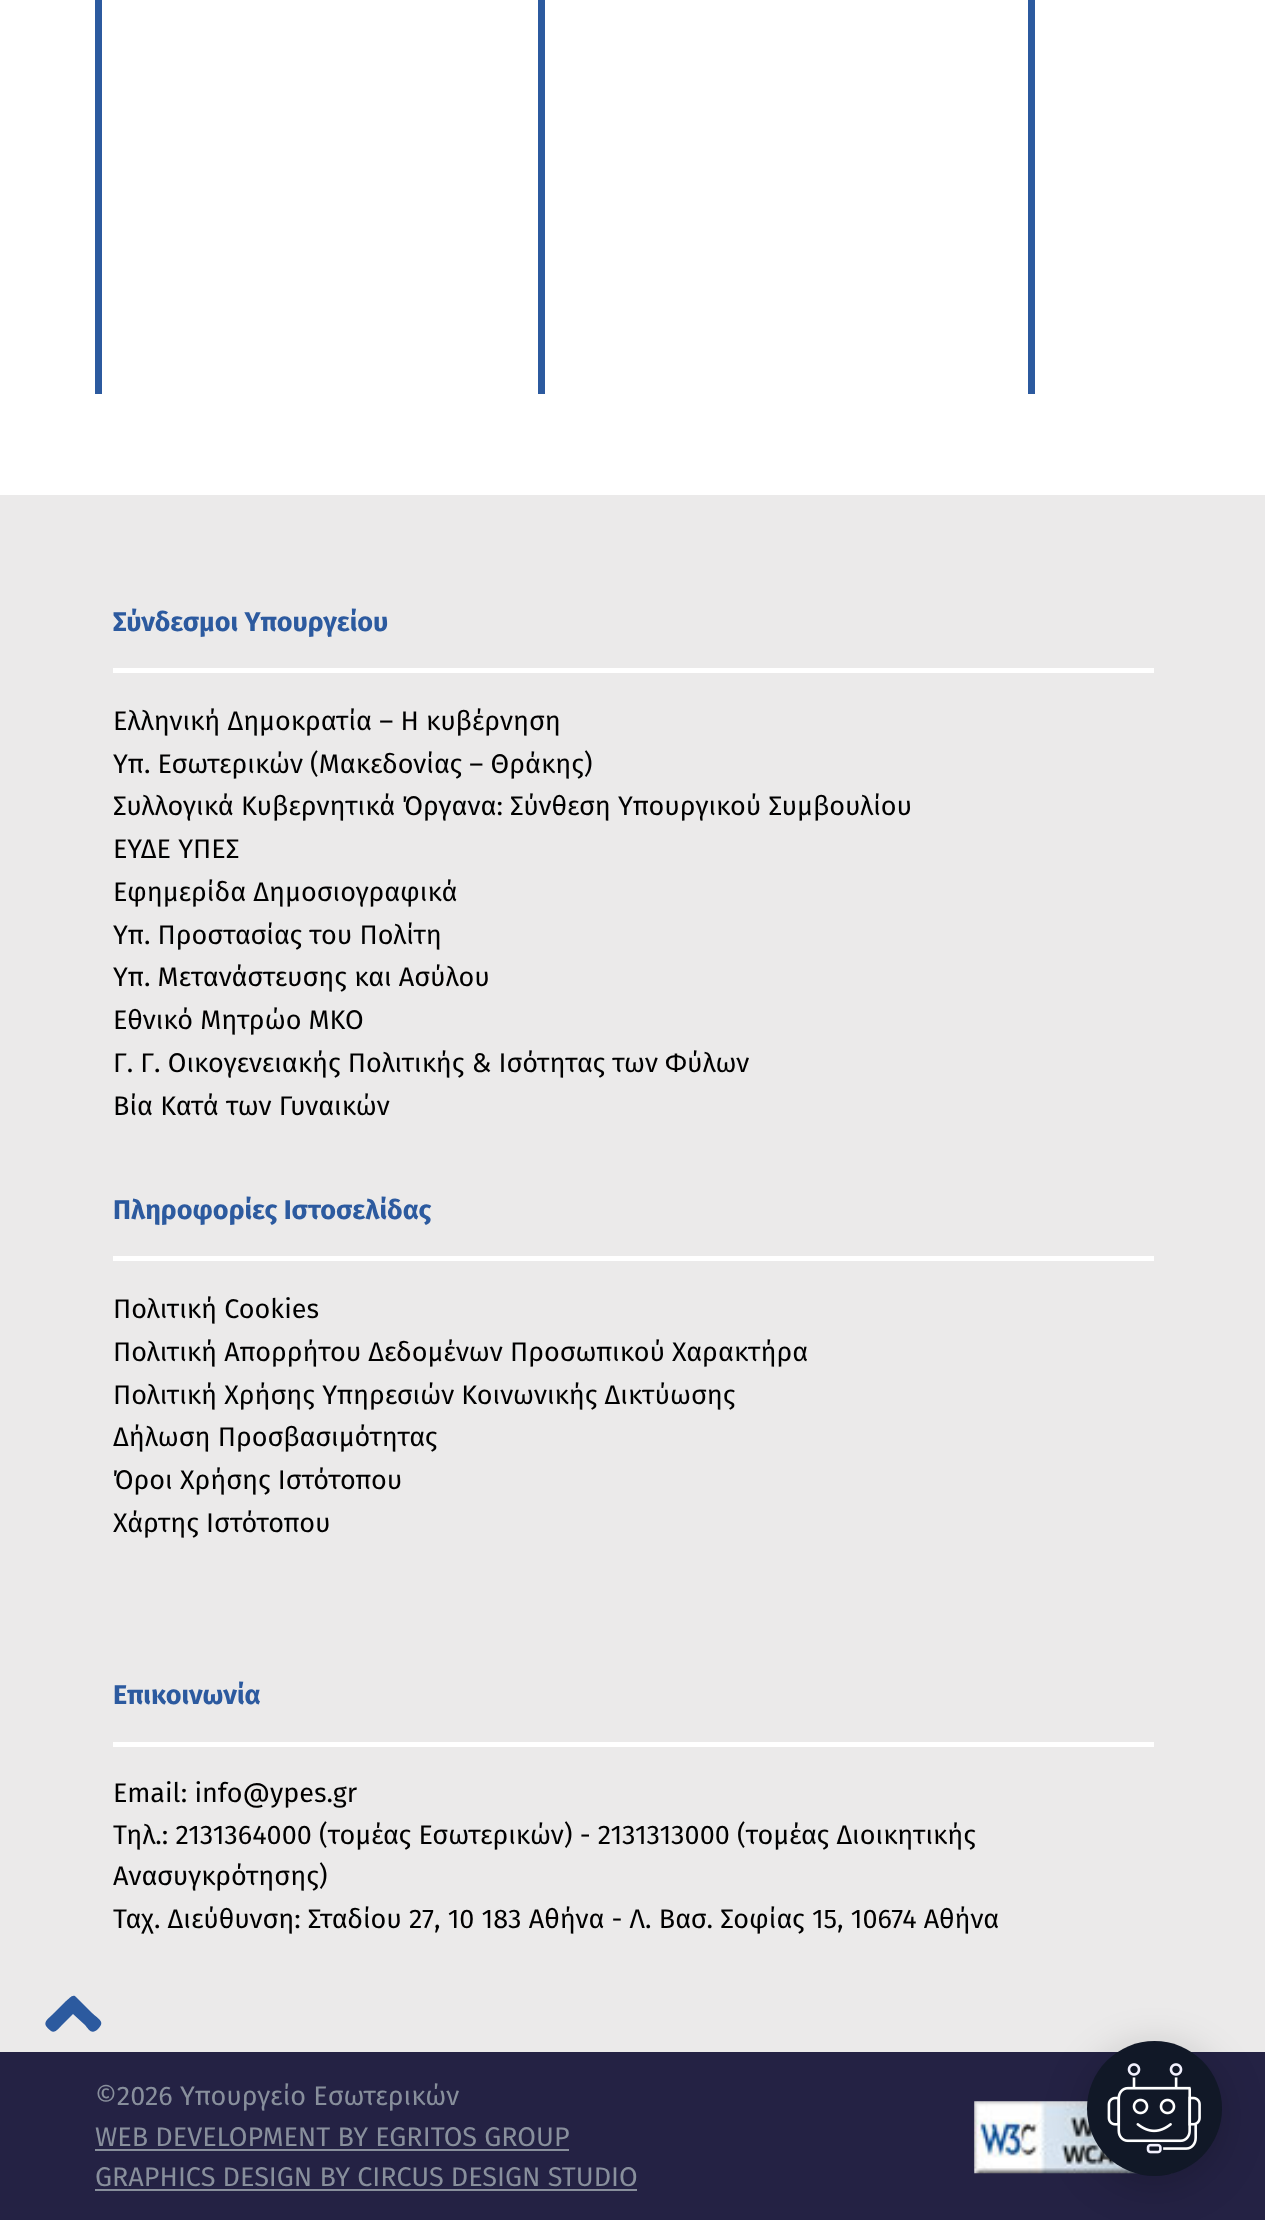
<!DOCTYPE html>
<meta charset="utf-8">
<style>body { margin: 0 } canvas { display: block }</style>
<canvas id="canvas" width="1265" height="2220"></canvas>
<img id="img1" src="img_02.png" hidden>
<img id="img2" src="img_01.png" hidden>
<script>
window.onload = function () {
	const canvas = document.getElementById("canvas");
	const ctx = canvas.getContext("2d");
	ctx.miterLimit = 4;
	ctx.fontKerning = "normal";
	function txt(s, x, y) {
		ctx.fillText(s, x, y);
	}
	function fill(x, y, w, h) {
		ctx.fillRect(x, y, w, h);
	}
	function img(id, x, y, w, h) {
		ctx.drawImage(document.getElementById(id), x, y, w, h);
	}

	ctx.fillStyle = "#FFFFFF";
	fill(0, 0, 1265, 2220);
	ctx.fillStyle = "#2C5A9F";
	fill(538, 0, 7, 394);
	fill(95, 0, 7, 394);
	fill(1028, 0, 7, 394);
	ctx.fillStyle = "#EBEAEA";
	fill(0, 495, 1265, 1557);
	ctx.fillStyle = "#FFFFFF";
	fill(113, 668, 1041, 5);
	fill(113, 1256, 1041, 5);
	fill(113, 1742, 1041, 5);
	ctx.fillStyle = "#2C5A9F";
	ctx.beginPath();
	ctx.moveTo(76, 1997);
	ctx.lineTo(92, 2013);
	ctx.bezierCurveTo(100, 2020, 105, 2022, 98, 2029);
	ctx.bezierCurveTo(92, 2035, 89, 2030, 85, 2025);
	ctx.lineTo(73, 2014);
	ctx.lineTo(62, 2025);
	ctx.bezierCurveTo(60, 2027, 55, 2034, 51, 2031);
	ctx.bezierCurveTo(41, 2023, 46, 2021, 54, 2013);
	ctx.lineTo(66, 2001);
	ctx.bezierCurveTo(69, 1999, 73, 1993, 76, 1997);
	ctx.closePath();
	ctx.fill();
	ctx.fillStyle = "#242244";
	fill(0, 2052, 1265, 168);
	img("img1", 974, 2101, 199, 73);
	ctx.fillStyle = "rgba(0, 0, 0, 0.2)";
	ctx.filter = "blur(21.5px)";
	ctx.beginPath();
	ctx.roundRect(1087, 2050, 135, 135, 67.5);
	ctx.fill();
	ctx.filter = "none";
	ctx.fillStyle = "#111827";
	ctx.beginPath();
	ctx.arc(1154.5, 2108.5, 67.5, 0, Math.PI * 2);
	ctx.fill();
	img("img2", 1107, 2063, 94, 91);
	ctx.fillStyle = "#888F9C";
	fill(95, 2149, 474, 2);
	fill(95, 2189, 542, 2);
	ctx.font = "bold 27px Fira Sans";
	ctx.fillStyle = "#2C5A9F";
	txt("Σύνδεσμοι Υπουργείου", 113, 631);
	ctx.font = "27px Fira Sans";
	ctx.fillStyle = "#000000";
	txt("Ελληνική Δημοκρατία – Η κυβέρνηση", 113, 730);
	txt("Υπ. Εσωτερικών (Μακεδονίας – Θράκης)", 113, 773);
	txt("Συλλογικά Κυβερνητικά Όργανα: Σύνθεση Υπουργικού Συμβουλίου", 113, 815);
	txt("ΕΥΔΕ ΥΠΕΣ", 113, 858);
	txt("Εφημερίδα Δημοσιογραφικά", 113, 901);
	txt("Υπ. Προστασίας του Πολίτη", 113, 944);
	txt("Υπ. Μετανάστευσης και Ασύλου", 113, 986);
	txt("Εθνικό Μητρώο MKO", 113, 1029);
	txt("Γ. Γ. Οικογενειακής Πολιτικής & Ισότητας των Φύλων", 113, 1072);
	txt("Βία Κατά των Γυναικών", 113, 1115);
	ctx.font = "bold 27px Fira Sans";
	ctx.fillStyle = "#2C5A9F";
	txt("Πληροφορίες Ιστοσελίδας", 113, 1219);
	ctx.font = "27px Fira Sans";
	ctx.fillStyle = "#000000";
	txt("Πολιτική Cookies", 113, 1318);
	txt("Πολιτική Απορρήτου Δεδομένων Προσωπικού Χαρακτήρα", 113, 1361);
	txt("Πολιτική Χρήσης Υπηρεσιών Κοινωνικής Δικτύωσης", 113, 1404);
	txt("Δήλωση Προσβασιμότητας", 113, 1446);
	txt("Όροι Χρήσης Ιστότοπου", 113, 1489);
	txt("Χάρτης Ιστότοπου", 113, 1532);
	ctx.font = "bold 27px Fira Sans";
	ctx.fillStyle = "#2C5A9F";
	txt("Επικοινωνία", 113, 1704);
	ctx.font = "27px Fira Sans";
	ctx.fillStyle = "#000000";
	txt("Email: info@ypes.gr", 113, 1802);
	txt("Τηλ.: 2131364000 (τομέας Εσωτερικών) - 2131313000 (τομέας Διοικητικής", 113, 1844);
	txt("Ανασυγκρότησης)", 113, 1885);
	txt("Ταχ. Διεύθυνση: Σταδίου 27, 10 183 Αθήνα - Λ. Βασ. Σοφίας 15, 10674 Αθήνα", 113, 1928);
	ctx.fillStyle = "#888F9C";
	txt("©2026 Υπουργείο Eσωτερικών", 95, 2105);
	txt("WEB DEVELOPMENT BY EGRITOS GROUP", 95, 2146);
	txt("GRAPHICS DESIGN BY CIRCUS DESIGN STUDIO", 95, 2186);
};
</script>
